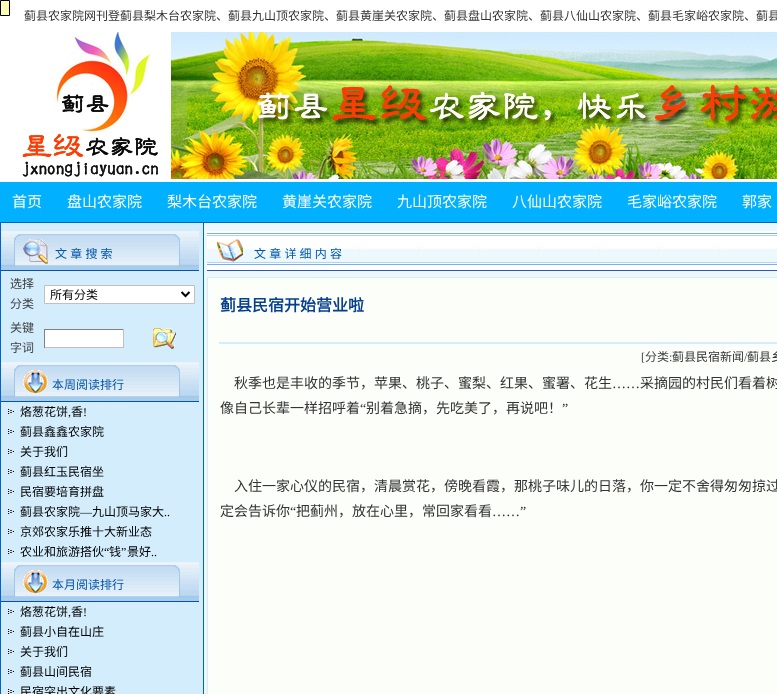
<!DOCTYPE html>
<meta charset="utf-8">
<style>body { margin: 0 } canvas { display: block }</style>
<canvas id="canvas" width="777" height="694"></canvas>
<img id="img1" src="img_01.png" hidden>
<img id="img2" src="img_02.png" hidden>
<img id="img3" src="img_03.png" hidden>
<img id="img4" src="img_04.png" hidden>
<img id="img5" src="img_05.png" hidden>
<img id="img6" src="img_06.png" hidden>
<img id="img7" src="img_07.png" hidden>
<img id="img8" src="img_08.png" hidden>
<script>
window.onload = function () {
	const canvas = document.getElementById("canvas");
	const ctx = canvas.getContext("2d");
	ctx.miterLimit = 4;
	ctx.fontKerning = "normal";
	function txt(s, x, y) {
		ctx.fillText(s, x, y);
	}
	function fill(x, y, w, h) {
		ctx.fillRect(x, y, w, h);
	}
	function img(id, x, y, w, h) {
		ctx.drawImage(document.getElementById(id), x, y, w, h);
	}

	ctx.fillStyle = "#FFFFFF";
	fill(0, 0, 777, 694);
	ctx.fillStyle = "#FFFFB3";
	ctx.beginPath();
	ctx.rect(0.5, 0.5, 9, 15);
	ctx.fill();
	ctx.strokeStyle = "#000000";
	ctx.stroke();
	img("img1", 22, 32, 755, 150);
	ctx.fillStyle = "#01B0FF";
	fill(0, 182, 777, 40);
	ctx.fillStyle = "#0063C7";
	fill(0, 222, 777, 472);
	ctx.fillStyle = "#D3EDFC";
	fill(1, 223, 202, 471);
	img("img2", 1, 231, 198, 40);
	img("img3", 23, 239, 25, 25);
	ctx.fillStyle = "#FFFFFF";
	ctx.beginPath();
	ctx.rect(44.5, 285.5, 150, 18);
	ctx.fill();
	ctx.strokeStyle = "#C0C0C0";
	ctx.stroke();
	ctx.beginPath();
	ctx.moveTo(181.5, 292);
	ctx.lineTo(185.5, 296);
	ctx.lineTo(189.5, 292);
	ctx.strokeStyle = "#000000";
	ctx.lineWidth = 2;
	ctx.stroke();
	fill(45, 330, 78, 17);
	ctx.fillStyle = "#808080";
	fill(44, 329, 80, 1);
	ctx.fillStyle = "#C0C0C0";
	fill(123, 329, 1, 19);
	fill(44, 347, 80, 1);
	ctx.fillStyle = "#808080";
	fill(44, 329, 1, 19);
	img("img4", 153, 328, 23, 21);
	img("img2", 1, 362, 198, 40);
	img("img5", 23, 370, 25, 24);
	img("img6", 8, 409, 6, 5);
	img("img6", 8, 429, 6, 5);
	img("img6", 8, 449, 6, 5);
	img("img6", 8, 469, 6, 5);
	img("img6", 8, 489, 6, 5);
	img("img6", 8, 509, 6, 5);
	img("img6", 8, 529, 6, 5);
	img("img6", 8, 549, 6, 5);
	img("img2", 1, 562, 198, 40);
	img("img5", 23, 570, 25, 24);
	img("img6", 8, 609, 6, 5);
	img("img6", 8, 629, 6, 5);
	img("img6", 8, 649, 6, 5);
	img("img6", 8, 669, 6, 5);
	img("img6", 8, 689, 6, 5);
	ctx.fillStyle = "#EDF8FE";
	fill(204, 223, 573, 471);
	img("img7", 207, 231, 570, 40);
	img("img8", 217, 239, 26, 23);
	ctx.fillStyle = "#D3EDFC";
	fill(207, 277, 570, 417);
	ctx.fillStyle = "#FCFEF9";
	fill(208, 278, 569, 416);
	ctx.fillStyle = "#D3EDFC";
	fill(219, 342, 558, 2);
	ctx.font = "12px Noto Sans CJK SC";
	ctx.fillStyle = "#333333";
	txt("蓟县农家院网刊登蓟县梨木台农家院、蓟县九山顶农家院、蓟县黄崖关农家院、蓟县盘山农家院、蓟县八仙山农家院、蓟县毛家峪农家院、蓟县", 24, 20);
	ctx.font = "15px Noto Sans CJK SC";
	ctx.fillStyle = "#FFFFFF";
	txt("首页", 12, 207);
	txt("盘山农家院", 67, 207);
	txt("梨木台农家院", 167, 207);
	txt("黄崖关农家院", 282, 207);
	txt("九山顶农家院", 397, 207);
	txt("八仙山农家院", 512, 207);
	txt("毛家峪农家院", 627, 207);
	txt("郭家", 742, 207);
	ctx.wordSpacing = "0.5px";
	ctx.font = "12px Noto Sans CJK SC";
	ctx.fillStyle = "#0055AA";
	txt("文 章 搜 索", 55, 258);
	ctx.wordSpacing = "0px";
	ctx.fillStyle = "#404142";
	txt("选择", 10, 288);
	txt("分类", 10, 308);
	ctx.fillStyle = "#000000";
	txt("所有分类", 50, 299);
	ctx.fillStyle = "#404142";
	txt("关键", 10, 332);
	txt("字词", 10, 352);
	ctx.fillStyle = "#0055AA";
	txt("本周阅读排行", 52, 389);
	ctx.fillStyle = "#000000";
	txt("烙葱花饼", 20, 416);
	txt("香", 71, 416);
	ctx.font = "12px Liberation Serif";
	txt("!", 83, 416);
	txt(",", 68, 416);
	ctx.font = "12px Noto Sans CJK SC";
	txt("蓟县鑫鑫农家院", 20, 436);
	txt("关于我们", 20, 456);
	txt("蓟县红玉民宿坐", 20, 476);
	txt("民宿要培育拼盘", 20, 496);
	txt("蓟县农家院", 20, 516);
	ctx.font = "12px Liberation Serif";
	txt("—", 80, 516);
	ctx.font = "12px Noto Sans CJK SC";
	txt("九山顶马家大", 92, 516);
	ctx.font = "12px Liberation Serif";
	txt("..", 164, 516);
	ctx.font = "12px Noto Sans CJK SC";
	txt("京郊农家乐推十大新业态", 20, 536);
	txt("农业和旅游搭伙", 20, 556);
	ctx.font = "12px Liberation Serif";
	txt("“", 104, 556);
	ctx.font = "12px Noto Sans CJK SC";
	txt("钱", 109, 556);
	ctx.font = "12px Liberation Serif";
	txt("”", 121, 556);
	ctx.font = "12px Noto Sans CJK SC";
	txt("景好", 127, 556);
	ctx.font = "12px Liberation Serif";
	txt("..", 151, 556);
	ctx.font = "12px Noto Sans CJK SC";
	ctx.fillStyle = "#0055AA";
	txt("本月阅读排行", 52, 589);
	ctx.fillStyle = "#000000";
	txt("烙葱花饼", 20, 616);
	txt("香", 71, 616);
	ctx.font = "12px Liberation Serif";
	txt("!", 83, 616);
	txt(",", 68, 616);
	ctx.font = "12px Noto Sans CJK SC";
	txt("蓟县小自在山庄", 20, 636);
	txt("关于我们", 20, 656);
	txt("蓟县山间民宿", 20, 676);
	txt("民宿突出文化要素", 20, 696);
	ctx.wordSpacing = "0.5px";
	ctx.fillStyle = "#0055AA";
	txt("文 章 详 细 内 容", 254, 258);
	ctx.wordSpacing = "0px";
	ctx.font = "bold 16px Noto Sans CJK SC";
	ctx.fillStyle = "#053F8E";
	txt("蓟县民宿开始营业啦", 220, 311);
	ctx.font = "12px Liberation Serif";
	ctx.fillStyle = "#404142";
	txt("[", 641, 361);
	ctx.font = "12px Noto Sans CJK SC";
	txt("分类", 645, 361);
	ctx.font = "12px Liberation Serif";
	txt(":", 669, 361);
	ctx.font = "12px Noto Sans CJK SC";
	ctx.fillStyle = "#333333";
	txt("蓟县民宿新闻", 672, 361);
	ctx.font = "12px Liberation Serif";
	ctx.fillStyle = "#404142";
	txt("/", 744, 361);
	ctx.font = "12px Noto Sans CJK SC";
	ctx.fillStyle = "#333333";
	txt("蓟县乡", 747, 361);
	ctx.font = "14px Noto Sans CJK SC";
	txt("秋季也是丰收的季节，苹果、桃子、蜜梨、红果、蜜署、花生", 234, 388);
	ctx.font = "14px Liberation Serif";
	txt("……", 612, 388);
	ctx.font = "14px Noto Sans CJK SC";
	txt("采摘园的村民们看着树", 640, 388);
	txt("像自己长辈一样招呼着", 220, 413);
	ctx.font = "14px Liberation Serif";
	txt("“", 360, 413);
	ctx.font = "14px Noto Sans CJK SC";
	txt("别着急摘，先吃美了，再说吧！", 366, 413);
	ctx.font = "14px Liberation Serif";
	txt("”", 562, 413);
	ctx.font = "14px Noto Sans CJK SC";
	txt("入住一家心仪的民宿，清晨赏花，傍晚看霞，那桃子味儿的日落，你一定不舍得匆匆掠过", 234, 491);
	txt("定会告诉你", 220, 516);
	ctx.font = "14px Liberation Serif";
	txt("“", 290, 516);
	ctx.font = "14px Noto Sans CJK SC";
	txt("把蓟州，放在心里，常回家看看", 296, 516);
	ctx.font = "14px Liberation Serif";
	txt("……”", 492, 516);
};
</script>
